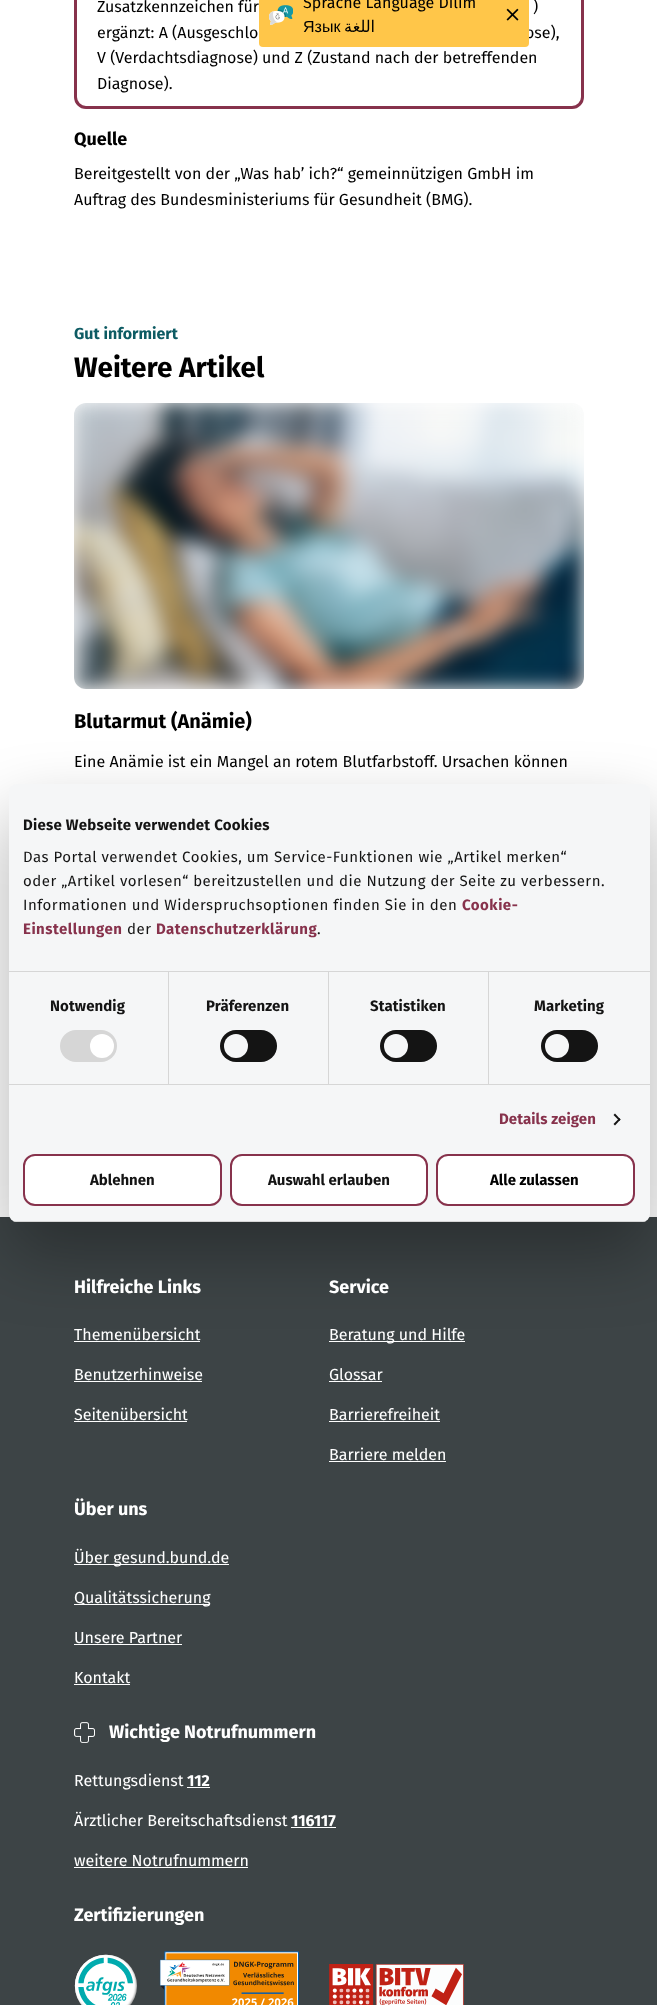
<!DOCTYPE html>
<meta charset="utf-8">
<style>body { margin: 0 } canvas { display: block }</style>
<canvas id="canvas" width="657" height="2005"></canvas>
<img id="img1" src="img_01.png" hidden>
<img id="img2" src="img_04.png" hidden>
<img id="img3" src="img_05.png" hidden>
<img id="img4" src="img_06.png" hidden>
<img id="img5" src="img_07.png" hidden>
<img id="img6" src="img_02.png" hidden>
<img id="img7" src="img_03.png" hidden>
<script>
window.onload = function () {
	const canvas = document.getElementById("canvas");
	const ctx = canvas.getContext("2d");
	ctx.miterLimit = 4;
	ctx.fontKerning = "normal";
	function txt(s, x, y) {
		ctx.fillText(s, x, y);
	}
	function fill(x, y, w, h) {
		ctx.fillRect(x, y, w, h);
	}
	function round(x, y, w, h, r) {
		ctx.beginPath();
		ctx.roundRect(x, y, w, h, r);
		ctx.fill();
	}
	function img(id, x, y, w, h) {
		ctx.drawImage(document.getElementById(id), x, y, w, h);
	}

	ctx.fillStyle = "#FFFFFF";
	fill(0, 0, 657, 2005);
	ctx.beginPath();
	ctx.roundRect(75.5, -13.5, 507, 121, 10.5);
	ctx.strokeStyle = "#87324C";
	ctx.lineWidth = 3;
	ctx.stroke();
	img("img1", 74, 403, 510, 286);
	ctx.fillStyle = "#3D4446";
	fill(0, 1217, 657, 788);
	ctx.fillStyle = "#FFFFFF";
	fill(74, 1341, 126, 1);
	fill(74, 1381, 128, 1);
	fill(74, 1421, 113, 1);
	fill(329, 1341, 136, 1);
	fill(329, 1381, 53, 1);
	fill(329, 1421, 111, 1);
	fill(329, 1461, 117, 1);
	fill(74, 1564, 155, 1);
	fill(74, 1604, 136, 1);
	fill(74, 1644, 108, 1);
	fill(74, 1684, 56, 1);
	img("img2", 74, 1722, 21, 21);
	fill(187, 1787, 23, 1);
	fill(291, 1827, 45, 1);
	fill(74, 1867, 174, 1);
	img("img3", 74, 1954, 63, 51);
	img("img4", 159, 1951, 140, 54);
	img("img5", 329, 1964, 135, 41);
	ctx.fillStyle = "rgba(0, 0, 0, 0.3)";
	ctx.filter = "blur(34px)";
	ctx.beginPath();
	ctx.roundRect(9, 816, 641, 438, 8);
	ctx.fill();
	ctx.filter = "none";
	ctx.fillStyle = "#F5F6F7";
	round(9, 784, 641, 438, 8);
	ctx.fillStyle = "#D6D6D6";
	fill(9, 971, 641, 1);
	fill(9, 1084, 641, 1);
	fill(168, 972, 1, 112);
	round(60, 1030, 57, 32, 16);
	ctx.fillStyle = "#FFFFFF";
	ctx.beginPath();
	ctx.arc(102, 1046, 12, 0, Math.PI * 2);
	ctx.fill();
	ctx.fillStyle = "#D6D6D6";
	fill(328, 972, 1, 112);
	ctx.fillStyle = "#141414";
	round(220, 1030, 57, 32, 16);
	ctx.fillStyle = "#F5F6F7";
	ctx.beginPath();
	ctx.arc(236, 1046, 12, 0, Math.PI * 2);
	ctx.fill();
	ctx.fillStyle = "#D6D6D6";
	fill(488, 972, 1, 112);
	ctx.fillStyle = "#141414";
	round(380, 1030, 57, 32, 16);
	ctx.fillStyle = "#F5F6F7";
	ctx.beginPath();
	ctx.arc(396, 1046, 12, 0, Math.PI * 2);
	ctx.fill();
	ctx.fillStyle = "#141414";
	round(541, 1030, 57, 32, 16);
	ctx.fillStyle = "#F5F6F7";
	ctx.beginPath();
	ctx.arc(557, 1046, 12, 0, Math.PI * 2);
	ctx.fill();
	ctx.fillStyle = "#141414";
	ctx.beginPath();
	ctx.moveTo(615, 1113.5);
	ctx.lineTo(620.5, 1119.5);
	ctx.lineTo(619.5, 1121);
	ctx.lineTo(613.5, 1115);
	ctx.closePath();
	ctx.fill();
	ctx.beginPath();
	ctx.moveTo(619.5, 1118);
	ctx.lineTo(620.5, 1119.5);
	ctx.lineTo(615, 1125.5);
	ctx.lineTo(613.5, 1124);
	ctx.closePath();
	ctx.fill();
	ctx.save();
	ctx.beginPath();
	ctx.roundRect(9, 784, 641, 438, 8);
	ctx.clip();
	ctx.fillStyle = "#D6D6D6";
	fill(9, 1221, 641, 1);
	ctx.restore();
	ctx.fillStyle = "#FFFFFF";
	ctx.beginPath();
	ctx.roundRect(24, 1155, 197, 50, 11);
	ctx.fill();
	ctx.lineWidth = 2;
	ctx.stroke();
	ctx.beginPath();
	ctx.roundRect(231, 1155, 196, 50, 11);
	ctx.fill();
	ctx.stroke();
	ctx.beginPath();
	ctx.roundRect(437, 1155, 197, 50, 11);
	ctx.fill();
	ctx.stroke();
	ctx.font = "16px Fira Sans";
	ctx.fillStyle = "#000000";
	txt("Zusatzkennzeichen für", 97, 12);
	txt(")", 533, 12);
	txt("ergänzt: A (Ausgeschlo", 97, 38);
	txt("ose),", 525, 38);
	txt("V (Verdachtsdiagnose) und Z (Zustand nach der betreffenden", 97, 63);
	txt("Diagnose).", 97, 89);
	ctx.font = "bold 18px Fira Sans";
	txt("Quelle", 74, 145);
	ctx.font = "16px Fira Sans";
	txt("Bereitgestellt von der „Was hab’ ich?“ gemeinnützigen GmbH im", 74, 179);
	txt("Auftrag des Bundesministeriums für Gesundheit (BMG).", 74, 205);
	ctx.font = "bold 16px Fira Sans";
	ctx.fillStyle = "#0D5B63";
	txt("Gut informiert", 74, 339);
	ctx.font = "bold 28px Fira Sans";
	ctx.fillStyle = "#000000";
	txt("Weitere Artikel", 74, 377);
	ctx.font = "bold 20px Fira Sans";
	txt("Blutarmut (Anämie)", 74, 728);
	ctx.font = "16px Fira Sans";
	txt("Eine Anämie ist ein Mangel an rotem Blutfarbstoff. Ursachen können", 74, 767);
	ctx.fillStyle = "#FFC649";
	round(259, -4, 270, 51, 4);
	img("img6", 269, 5, 24, 20);
	ctx.fillStyle = "#000000";
	txt("Sprache Language Dilim", 303, 8);
	ctx.font = "16px Liberation Sans";
	txt("Язык", 303, 32);
	ctx.direction = "rtl";
	ctx.font = "16px DejaVu Sans";
	txt("اللغة", 375, 32);
	img("img7", 506, 8, 13, 13);
	ctx.direction = "ltr";
	ctx.font = "bold 18px Fira Sans";
	ctx.fillStyle = "#FFFFFF";
	txt("Hilfreiche Links", 74, 1293);
	ctx.font = "16px Fira Sans";
	txt("Themenübersicht", 74, 1340);
	txt("Benutzerhinweise", 74, 1380);
	txt("Seitenübersicht", 74, 1420);
	ctx.font = "bold 18px Fira Sans";
	txt("Service", 329, 1293);
	ctx.font = "16px Fira Sans";
	txt("Beratung und Hilfe", 329, 1340);
	txt("Glossar", 329, 1380);
	txt("Barrierefreiheit", 329, 1420);
	txt("Barriere melden", 329, 1460);
	ctx.font = "bold 18px Fira Sans";
	txt("Über uns", 74, 1515);
	ctx.font = "16px Fira Sans";
	txt("Über gesund.bund.de", 74, 1563);
	txt("Qualitätssicherung", 74, 1603);
	txt("Unsere Partner", 74, 1643);
	txt("Kontakt", 74, 1683);
	ctx.font = "bold 18px Fira Sans";
	txt("Wichtige Notrufnummern", 109, 1738);
	ctx.font = "16px Fira Sans";
	txt("Rettungsdienst", 74, 1786);
	ctx.font = "bold 16px Fira Sans";
	txt("112", 187, 1786);
	ctx.font = "16px Fira Sans";
	txt("Ärztlicher Bereitschaftsdienst", 74, 1826);
	ctx.font = "bold 16px Fira Sans";
	txt("116117", 291, 1826);
	ctx.font = "16px Fira Sans";
	txt("weitere Notrufnummern", 74, 1866);
	ctx.font = "bold 18px Fira Sans";
	txt("Zertifizierungen", 74, 1921);
	ctx.letterSpacing = "0.25px";
	ctx.font = "bold 15px Fira Sans";
	ctx.fillStyle = "#141414";
	txt("Diese Webseite verwendet Cookies", 23, 830);
	ctx.letterSpacing = "0.5px";
	ctx.font = "15px Fira Sans";
	txt("Das Portal verwendet Cookies, um Service-Funktionen wie „Artikel merken“", 23, 862);
	txt("oder „Artikel vorlesen“ bereitzustellen und die Nutzung der Seite zu verbessern.", 23, 886);
	txt("Informationen und Widerspruchsoptionen finden Sie in den", 23, 910);
	ctx.font = "bold 15px Fira Sans";
	ctx.fillStyle = "#87324C";
	txt("Cookie-", 462, 910);
	txt("Einstellungen", 23, 934);
	ctx.font = "15px Fira Sans";
	ctx.fillStyle = "#141414";
	txt("der", 127, 934);
	ctx.font = "bold 15px Fira Sans";
	ctx.fillStyle = "#87324C";
	txt("Datenschutzerklärung", 156, 934);
	ctx.font = "15px Fira Sans";
	ctx.fillStyle = "#141414";
	txt(".", 317, 934);
	ctx.letterSpacing = "0.1px";
	ctx.font = "bold 15px Fira Sans";
	txt("Notwendig", 50, 1011);
	txt("Präferenzen", 206, 1011);
	txt("Statistiken", 370, 1011);
	txt("Marketing", 534, 1011);
	ctx.fillStyle = "#87324C";
	txt("Details zeigen", 499, 1124);
	ctx.letterSpacing = "0px";
	ctx.fillStyle = "#141414";
	txt("Ablehnen", 90, 1185);
	txt("Auswahl erlauben", 268, 1185);
	ctx.fillStyle = "#000000";
	txt("Alle zulassen", 490, 1185);
};
</script>
